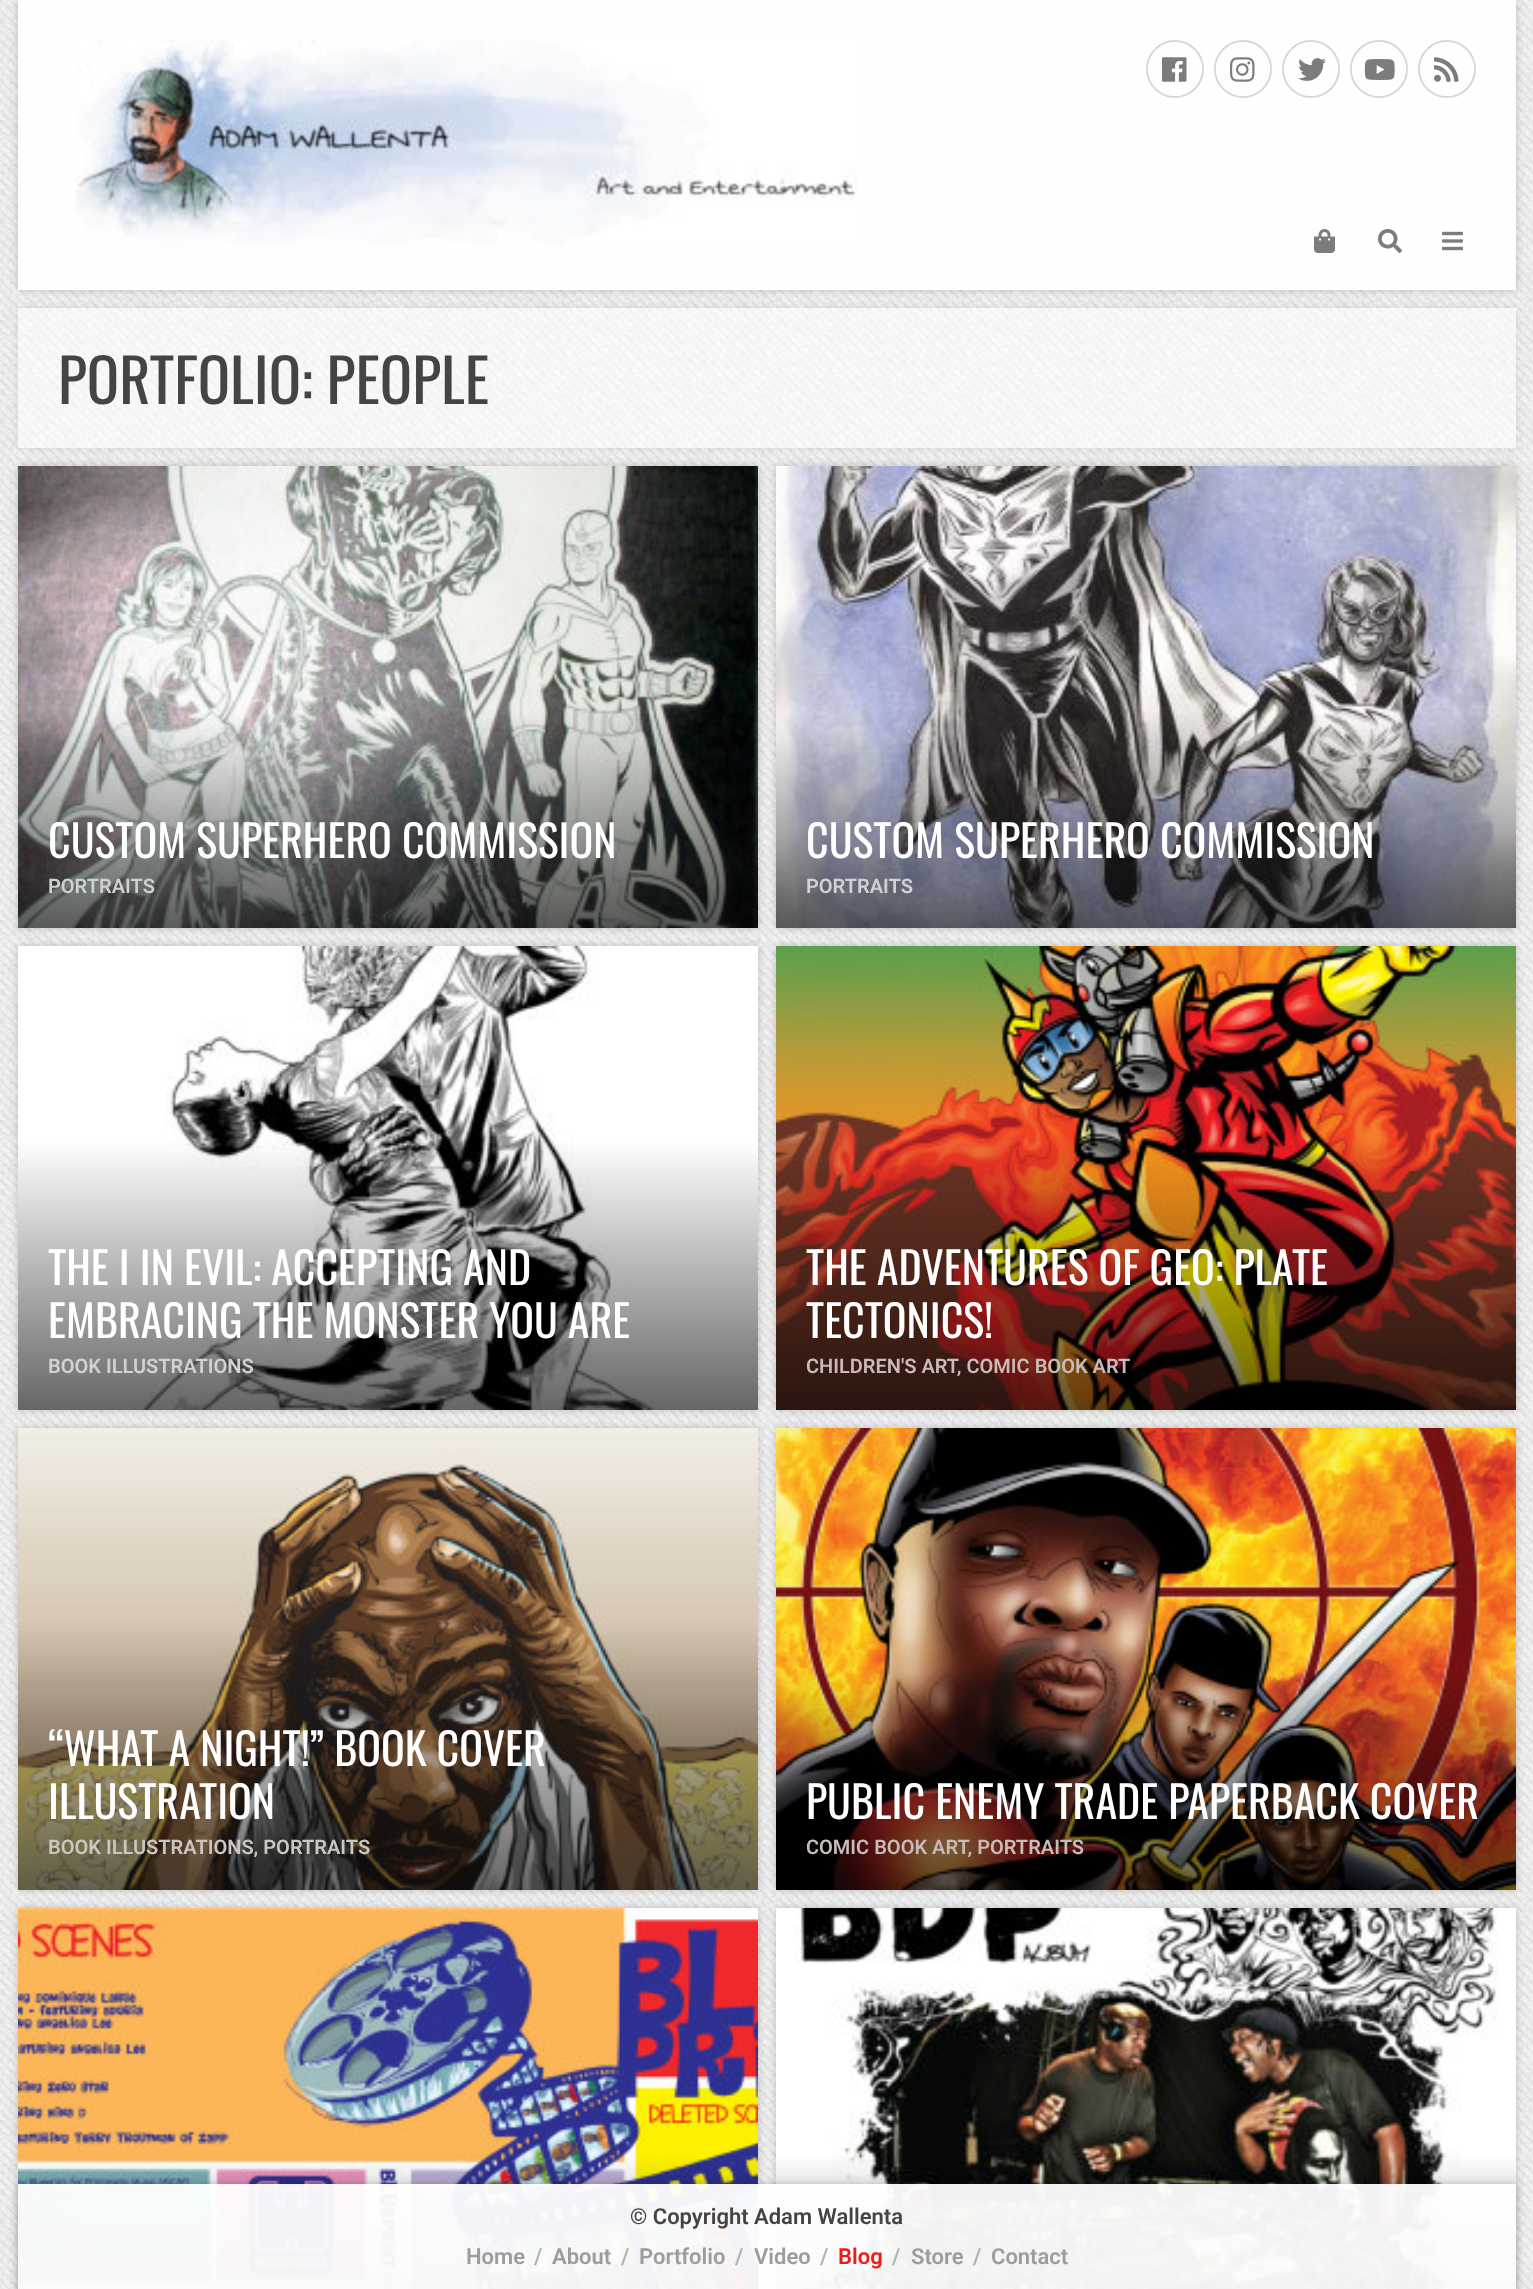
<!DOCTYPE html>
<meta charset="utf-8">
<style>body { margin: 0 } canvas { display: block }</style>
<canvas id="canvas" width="1533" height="2289"></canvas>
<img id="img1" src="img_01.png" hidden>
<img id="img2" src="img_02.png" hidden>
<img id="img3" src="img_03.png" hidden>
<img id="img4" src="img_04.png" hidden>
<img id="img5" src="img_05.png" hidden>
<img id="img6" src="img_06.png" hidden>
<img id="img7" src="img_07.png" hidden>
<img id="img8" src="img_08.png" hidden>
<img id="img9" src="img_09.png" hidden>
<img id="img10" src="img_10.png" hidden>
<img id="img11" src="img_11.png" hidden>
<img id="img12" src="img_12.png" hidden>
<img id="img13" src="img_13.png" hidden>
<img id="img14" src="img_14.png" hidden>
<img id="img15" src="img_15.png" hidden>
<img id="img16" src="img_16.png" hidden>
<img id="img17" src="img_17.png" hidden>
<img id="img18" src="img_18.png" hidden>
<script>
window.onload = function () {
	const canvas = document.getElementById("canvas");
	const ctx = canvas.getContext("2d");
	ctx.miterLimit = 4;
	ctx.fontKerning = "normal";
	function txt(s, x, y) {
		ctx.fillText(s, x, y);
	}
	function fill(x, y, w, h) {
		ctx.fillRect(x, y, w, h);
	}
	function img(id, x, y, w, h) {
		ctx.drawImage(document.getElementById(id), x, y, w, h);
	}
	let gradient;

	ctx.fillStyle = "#FFFFFF";
	fill(0, 0, 1533, 2289);
	img("img1", 0, 0, 1533, 2289);
	ctx.save();
	ctx.beginPath();
	ctx.moveTo(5, 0);
	ctx.lineTo(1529, 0);
	ctx.lineTo(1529, 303);
	ctx.lineTo(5, 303);
	ctx.closePath();
	ctx.moveTo(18, 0);
	ctx.lineTo(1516, 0);
	ctx.lineTo(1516, 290);
	ctx.lineTo(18, 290);
	ctx.closePath();
	ctx.clip("evenodd");
	ctx.fillStyle = "rgba(0, 0, 0, 0.2)";
	ctx.filter = "blur(4px)";
	ctx.beginPath();
	ctx.rect(18, 0, 1498, 290);
	ctx.fill();
	ctx.filter = "none";
	ctx.restore();
	ctx.fillStyle = "rgba(255, 255, 255, 0.95)";
	fill(18, 0, 1498, 290);
	img("img2", 74, 40, 784, 206);
	ctx.beginPath();
	ctx.arc(1175, 69, 28, 0, Math.PI * 2);
	ctx.strokeStyle = "#D7D7D7";
	ctx.lineWidth = 2;
	ctx.stroke();
	ctx.fillStyle = "#FEFEFE";
	ctx.beginPath();
	ctx.arc(1175, 69, 27, 0, Math.PI * 2);
	ctx.fill();
	img("img3", 1162, 57, 25, 25);
	ctx.beginPath();
	ctx.arc(1243, 69, 28, 0, Math.PI * 2);
	ctx.stroke();
	gradient = ctx.createLinearGradient(1217, 95, 1269, 43);
	gradient.addColorStop(0, "#FEFEFE");
	gradient.addColorStop(0.25, "#FEFEFE");
	gradient.addColorStop(0.5, "#FEFEFE");
	gradient.addColorStop(0.75, "#FEFEFE");
	gradient.addColorStop(1, "#FEFEFE");
	ctx.fillStyle = gradient;
	ctx.beginPath();
	ctx.arc(1243, 69, 27, 0, Math.PI * 2);
	ctx.fill();
	img("img4", 1230, 57, 25, 25);
	ctx.beginPath();
	ctx.arc(1311, 69, 28, 0, Math.PI * 2);
	ctx.stroke();
	ctx.fillStyle = "#FEFEFE";
	ctx.beginPath();
	ctx.arc(1311, 69, 27, 0, Math.PI * 2);
	ctx.fill();
	img("img5", 1298, 58, 28, 23);
	ctx.beginPath();
	ctx.arc(1379, 69, 28, 0, Math.PI * 2);
	ctx.stroke();
	ctx.beginPath();
	ctx.arc(1379, 69, 27, 0, Math.PI * 2);
	ctx.fill();
	img("img6", 1364, 59, 31, 21);
	ctx.beginPath();
	ctx.arc(1447, 69, 28, 0, Math.PI * 2);
	ctx.stroke();
	ctx.beginPath();
	ctx.arc(1447, 69, 27, 0, Math.PI * 2);
	ctx.fill();
	img("img7", 1434, 57, 25, 25);
	img("img8", 1314, 229, 21, 24);
	img("img9", 1378, 229, 24, 24);
	img("img10", 1442, 231, 21, 20);
	ctx.save();
	ctx.beginPath();
	ctx.moveTo(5, 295);
	ctx.lineTo(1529, 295);
	ctx.lineTo(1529, 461);
	ctx.lineTo(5, 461);
	ctx.closePath();
	ctx.moveTo(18, 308);
	ctx.lineTo(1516, 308);
	ctx.lineTo(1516, 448);
	ctx.lineTo(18, 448);
	ctx.closePath();
	ctx.clip("evenodd");
	ctx.fillStyle = "rgba(0, 0, 0, 0.1)";
	ctx.filter = "blur(4px)";
	ctx.beginPath();
	ctx.rect(18, 308, 1498, 140);
	ctx.fill();
	ctx.filter = "none";
	ctx.restore();
	ctx.fillStyle = "rgba(255, 255, 255, 0.6)";
	fill(18, 308, 1498, 140);
	ctx.fillStyle = "rgba(0, 0, 0, 0.2)";
	ctx.filter = "blur(4px)";
	ctx.beginPath();
	ctx.rect(18, 466, 740, 462);
	ctx.fill();
	ctx.filter = "none";
	img("img11", 18, 466, 740, 462);
	ctx.filter = "blur(4px)";
	ctx.beginPath();
	ctx.rect(776, 466, 740, 462);
	ctx.fill();
	ctx.filter = "none";
	img("img12", 776, 466, 740, 462);
	ctx.filter = "blur(4px)";
	ctx.beginPath();
	ctx.rect(18, 946, 740, 464);
	ctx.fill();
	ctx.filter = "none";
	img("img13", 18, 946, 740, 464);
	ctx.filter = "blur(4px)";
	ctx.beginPath();
	ctx.rect(776, 946, 740, 464);
	ctx.fill();
	ctx.filter = "none";
	img("img14", 776, 946, 740, 464);
	ctx.filter = "blur(4px)";
	ctx.beginPath();
	ctx.rect(18, 1428, 740, 462);
	ctx.fill();
	ctx.filter = "none";
	img("img15", 18, 1428, 740, 462);
	ctx.filter = "blur(4px)";
	ctx.beginPath();
	ctx.rect(776, 1428, 740, 462);
	ctx.fill();
	ctx.filter = "none";
	img("img16", 776, 1428, 740, 462);
	ctx.filter = "blur(4px)";
	ctx.beginPath();
	ctx.rect(18, 1908, 740, 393);
	ctx.fill();
	ctx.filter = "none";
	img("img17", 18, 1908, 740, 381);
	ctx.filter = "blur(4px)";
	ctx.beginPath();
	ctx.rect(776, 1908, 740, 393);
	ctx.fill();
	ctx.filter = "none";
	img("img18", 776, 1908, 740, 381);
	ctx.save();
	ctx.beginPath();
	ctx.moveTo(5, 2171);
	ctx.lineTo(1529, 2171);
	ctx.lineTo(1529, 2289);
	ctx.lineTo(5, 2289);
	ctx.closePath();
	ctx.moveTo(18, 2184);
	ctx.lineTo(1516, 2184);
	ctx.lineTo(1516, 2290);
	ctx.lineTo(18, 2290);
	ctx.closePath();
	ctx.clip("evenodd");
	ctx.filter = "blur(4px)";
	ctx.beginPath();
	ctx.rect(18, 2184, 1498, 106);
	ctx.fill();
	ctx.filter = "none";
	ctx.restore();
	ctx.fillStyle = "rgba(255, 255, 255, 0.95)";
	fill(18, 2184, 1498, 105);
	ctx.font = "60px Oswald";
	ctx.fillStyle = "#444444";
	txt("PORTFOLIO: PEOPLE", 58, 404);
	ctx.font = "44px Oswald";
	ctx.fillStyle = "#FFFFFF";
	txt("CUSTOM SUPERHERO COMMISSION", 48, 858);
	ctx.font = "600 20px Roboto";
	ctx.fillStyle = "#CFD0D0";
	txt("PORTRAITS", 48, 893);
	ctx.font = "44px Oswald";
	ctx.fillStyle = "#FFFFFF";
	txt("CUSTOM SUPERHERO COMMISSION", 806, 858);
	ctx.font = "600 20px Roboto";
	ctx.fillStyle = "#D1D2D6";
	txt("PORTRAITS", 806, 893);
	ctx.font = "44px Oswald";
	ctx.fillStyle = "#FFFFFF";
	txt("THE I IN EVIL: ACCEPTING AND", 48, 1285);
	txt("EMBRACING THE MONSTER YOU ARE", 48, 1338);
	ctx.font = "600 20px Roboto";
	ctx.fillStyle = "#D1D2D6";
	txt("BOOK ILLUSTRATIONS", 48, 1373);
	ctx.font = "44px Oswald";
	ctx.fillStyle = "#FFFFFF";
	txt("THE ADVENTURES OF GEO: PLATE", 806, 1285);
	txt("TECTONICS!", 806, 1338);
	ctx.font = "600 20px Roboto";
	ctx.fillStyle = "#C8BBB8";
	txt("CHILDREN'S ART, COMIC BOOK ART", 806, 1373);
	ctx.font = "44px Oswald";
	ctx.fillStyle = "#FFFFFF";
	txt("“WHAT A NIGHT!” BOOK COVER", 48, 1766);
	txt("ILLUSTRATION", 48, 1819);
	ctx.font = "600 20px Roboto";
	ctx.fillStyle = "#C9C7C2";
	txt("BOOK ILLUSTRATIONS, PORTRAITS", 48, 1854);
	ctx.font = "44px Oswald";
	ctx.fillStyle = "#FFFFFF";
	txt("PUBLIC ENEMY TRADE PAPERBACK COVER", 806, 1819);
	ctx.font = "600 20px Roboto";
	ctx.fillStyle = "#C8BBB8";
	txt("COMIC BOOK ART, PORTRAITS", 806, 1854);
	ctx.font = "600 22px Roboto";
	ctx.fillStyle = "#444444";
	txt("© Copyright Adam Wallenta", 630, 2224);
	ctx.fillStyle = "#9C9C9C";
	txt("Home", 466, 2264);
	ctx.fillStyle = "#B0B1B1";
	txt("/", 534, 2264);
	ctx.fillStyle = "#9C9C9C";
	txt("About", 552, 2264);
	ctx.fillStyle = "#B0B1B1";
	txt("/", 621, 2264);
	ctx.fillStyle = "#9C9C9C";
	txt("Portfolio", 639, 2264);
	ctx.fillStyle = "#B0B1B1";
	txt("/", 735, 2264);
	ctx.fillStyle = "#9C9C9C";
	txt("Video", 754, 2264);
	ctx.fillStyle = "#B0B1B1";
	txt("/", 820, 2264);
	ctx.fillStyle = "#ED1A1A";
	txt("Blog", 838, 2264);
	ctx.fillStyle = "#B0B1B1";
	txt("/", 892, 2264);
	ctx.fillStyle = "#9C9C9C";
	txt("Store", 911, 2264);
	ctx.fillStyle = "#B0B1B1";
	txt("/", 973, 2264);
	ctx.fillStyle = "#9C9C9C";
	txt("Contact", 991, 2264);
};
</script>
